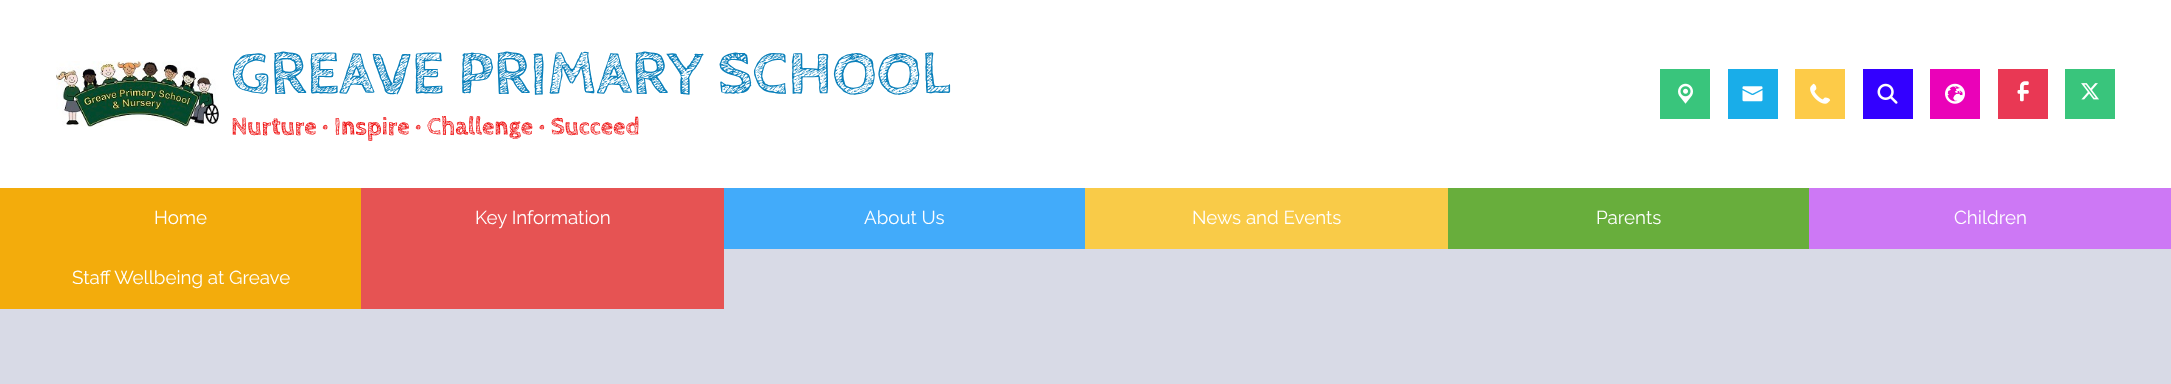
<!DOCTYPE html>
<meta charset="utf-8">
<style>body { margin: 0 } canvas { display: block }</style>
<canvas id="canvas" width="2171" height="384"></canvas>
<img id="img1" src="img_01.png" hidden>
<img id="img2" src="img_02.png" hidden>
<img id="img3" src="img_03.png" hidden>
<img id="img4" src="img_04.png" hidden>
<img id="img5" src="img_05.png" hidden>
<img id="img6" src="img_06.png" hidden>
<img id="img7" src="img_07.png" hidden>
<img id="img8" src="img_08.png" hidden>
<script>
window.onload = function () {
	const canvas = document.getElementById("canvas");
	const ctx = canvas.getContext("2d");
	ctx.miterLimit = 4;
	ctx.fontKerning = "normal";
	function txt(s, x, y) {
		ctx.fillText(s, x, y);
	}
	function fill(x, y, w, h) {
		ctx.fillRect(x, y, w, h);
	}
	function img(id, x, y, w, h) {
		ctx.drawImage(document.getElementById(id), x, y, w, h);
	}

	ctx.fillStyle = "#D8DAE6";
	fill(0, 0, 2171, 384);
	ctx.fillStyle = "#FFFFFF";
	fill(0, 0, 2171, 188);
	img("img1", 56, 61, 163, 66);
	ctx.fillStyle = "#39C57C";
	fill(1660, 69, 50, 50);
	img("img2", 1678, 83, 15, 21);
	ctx.fillStyle = "#19ADE9";
	fill(1728, 69, 50, 50);
	img("img3", 1742, 86, 21, 16);
	ctx.fillStyle = "#FDCB48";
	fill(1795, 69, 50, 50);
	img("img4", 1810, 83, 21, 21);
	ctx.fillStyle = "#3300FF";
	fill(1863, 69, 50, 50);
	img("img5", 1877, 83, 21, 21);
	ctx.fillStyle = "#EA02B8";
	fill(1930, 69, 50, 50);
	img("img6", 1945, 83, 20, 21);
	ctx.fillStyle = "#E93854";
	fill(1998, 69, 50, 50);
	img("img7", 2017, 81, 12, 21);
	ctx.fillStyle = "#39C57C";
	fill(2065, 69, 50, 50);
	img("img8", 2081, 83, 18, 17);
	ctx.fillStyle = "#F3AC0C";
	fill(0, 188, 361, 121);
	ctx.fillStyle = "#E65353";
	fill(361, 188, 363, 121);
	ctx.fillStyle = "#42ABFA";
	fill(724, 188, 361, 61);
	ctx.fillStyle = "#F9CB48";
	fill(1085, 188, 363, 61);
	ctx.fillStyle = "#68AE3C";
	fill(1448, 188, 361, 61);
	ctx.fillStyle = "#CD78F5";
	fill(1809, 188, 362, 61);
	ctx.font = "bold 62.5px Cabin Sketch";
	ctx.fillStyle = "#0B80BB";
	txt("GREAVE PRIMARY SCHOOL", 231, 93);
	ctx.font = "bold 25px Cabin Sketch";
	ctx.fillStyle = "#EE0000";
	txt("Nurture • Inspire • Challenge • Succeed", 231, 134);
	ctx.font = "18.75px Raleway";
	ctx.fillStyle = "#FFFFFF";
	txt("Home", 154, 224);
	txt("Key Information", 475, 224);
	txt("About Us", 864, 224);
	txt("News and Events", 1192, 224);
	txt("Parents", 1596, 224);
	txt("Children", 1954, 224);
	txt("Staff Wellbeing at Greave", 72, 284);
};
</script>
